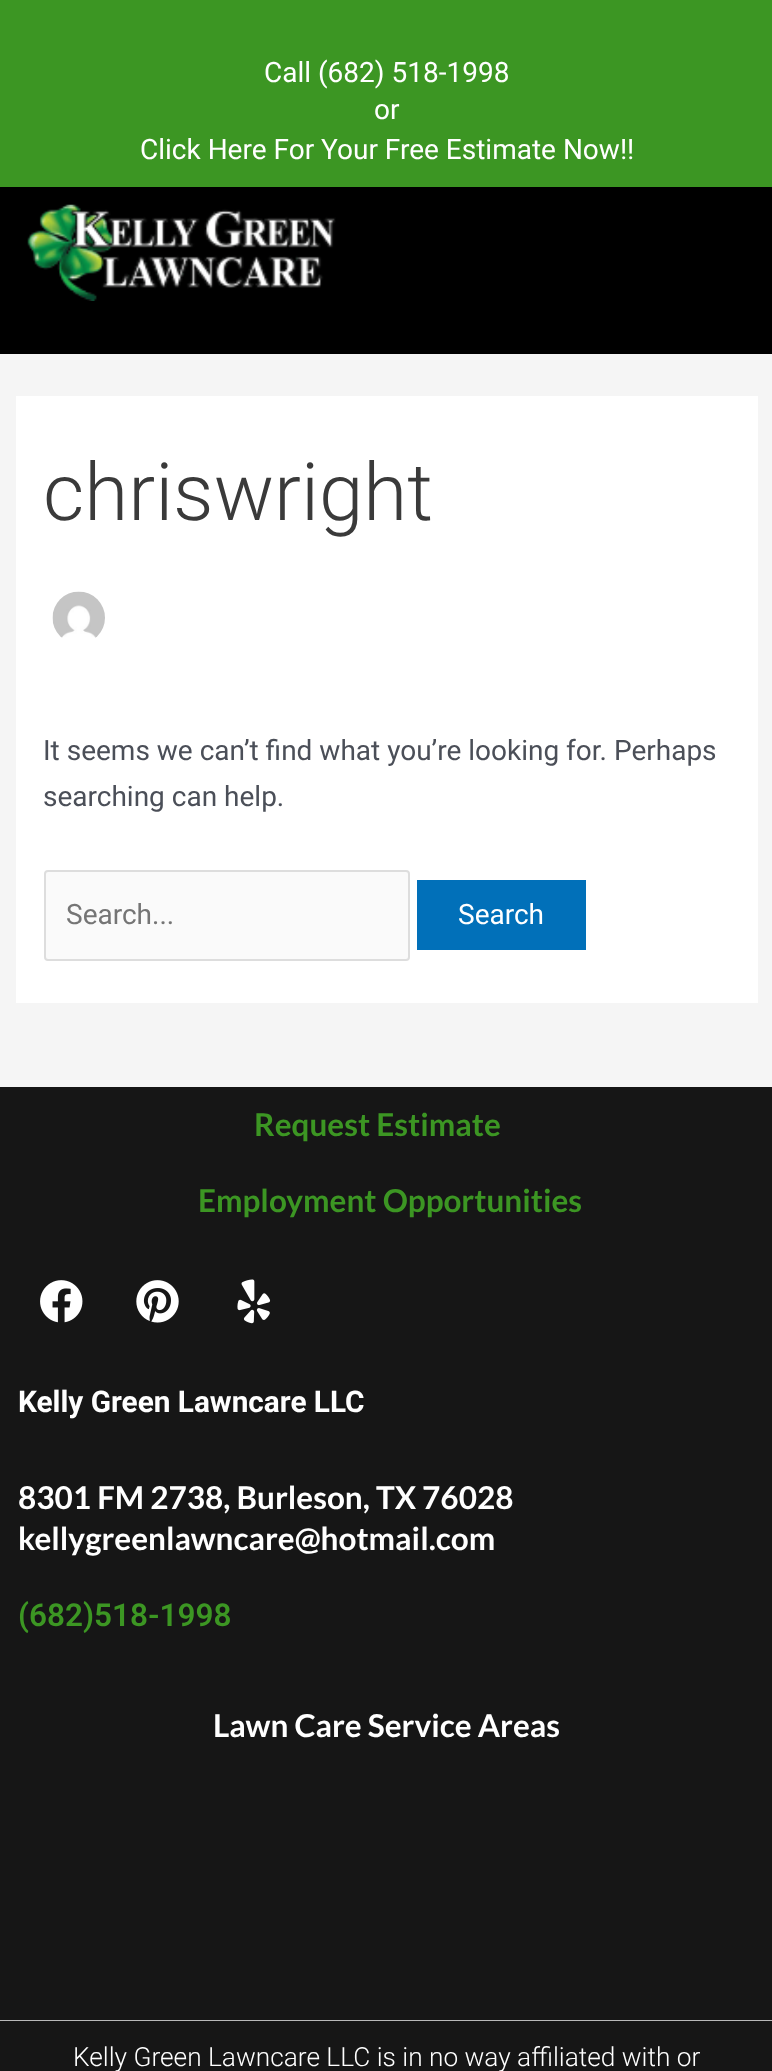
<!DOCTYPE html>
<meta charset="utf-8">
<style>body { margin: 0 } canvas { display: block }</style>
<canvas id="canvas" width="772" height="2071"></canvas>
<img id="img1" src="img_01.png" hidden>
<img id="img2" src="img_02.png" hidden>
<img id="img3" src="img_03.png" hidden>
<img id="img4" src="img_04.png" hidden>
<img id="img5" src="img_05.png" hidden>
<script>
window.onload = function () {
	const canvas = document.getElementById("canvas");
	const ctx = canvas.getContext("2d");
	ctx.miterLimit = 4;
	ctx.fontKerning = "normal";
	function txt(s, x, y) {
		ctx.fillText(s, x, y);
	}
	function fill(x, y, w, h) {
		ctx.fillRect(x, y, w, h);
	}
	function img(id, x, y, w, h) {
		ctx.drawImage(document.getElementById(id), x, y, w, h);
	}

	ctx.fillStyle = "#F5F5F5";
	fill(0, 0, 772, 2071);
	ctx.fillStyle = "#3C9623";
	fill(0, 0, 772, 187);
	ctx.fillStyle = "#000000";
	fill(0, 187, 772, 167);
	img("img1", 27, 204, 309, 97);
	ctx.fillStyle = "#FFFFFF";
	fill(16, 396, 742, 607);
	img("img2", 52, 591, 53, 47);
	ctx.fillStyle = "#FAFAFA";
	ctx.beginPath();
	ctx.roundRect(45, 871, 364, 89, 3);
	ctx.fill();
	ctx.strokeStyle = "#DDDDDD";
	ctx.lineWidth = 2;
	ctx.stroke();
	ctx.fillStyle = "#0170B9";
	fill(417, 880, 169, 70);
	ctx.fillStyle = "#161616";
	fill(0, 1087, 772, 933);
	ctx.fillStyle = "#B9B9B9";
	fill(0, 2020, 772, 1);
	img("img3", 40, 1280, 43, 43);
	img("img4", 136, 1280, 43, 43);
	img("img5", 237, 1279, 34, 45);
	ctx.fillStyle = "#161616";
	fill(0, 2021, 772, 50);
	ctx.font = "28px Roboto";
	ctx.fillStyle = "#FFFFFF";
	txt("Call (682) 518-1998", 264, 82);
	txt("or", 374, 119);
	txt("Click Here For Your Free Estimate Now!!", 140, 159);
	ctx.font = "300 80px Roboto";
	ctx.fillStyle = "#3A3A3A";
	txt("chriswright", 43, 520);
	ctx.font = "28px Roboto";
	ctx.fillStyle = "#4B4F58";
	txt("It seems we can’t find what you’re looking for. Perhaps", 43, 760);
	txt("searching can help.", 43, 806);
	ctx.fillStyle = "#757575";
	txt("Search...", 66, 924);
	ctx.fillStyle = "#FFFFFF";
	txt("Search", 458, 924);
	ctx.font = "bold 31.5px Lato";
	ctx.fillStyle = "#3C9623";
	txt("Request Estimate", 254, 1136);
	txt("Employment Opportunities", 198, 1212);
	ctx.font = "bold 29.75px Roboto";
	ctx.fillStyle = "#FFFFFF";
	txt("Kelly Green Lawncare LLC", 18, 1412);
	ctx.font = "bold 31.5px Lato";
	txt("8301 FM 2738, Burleson, TX 76028", 18, 1509);
	txt("kellygreenlawncare@hotmail.com", 18, 1550);
	ctx.font = "600 31.5px Roboto";
	ctx.fillStyle = "#3C9623";
	txt("(682)518-1998", 18, 1626);
	ctx.font = "bold 31.5px Lato";
	ctx.fillStyle = "#FFFFFF";
	txt("Lawn Care Service Areas", 213, 1737);
	ctx.font = "300 26.25px Roboto";
	txt("Kelly Green Lawncare LLC is in no way affiliated with or", 73, 2066);
};
</script>
